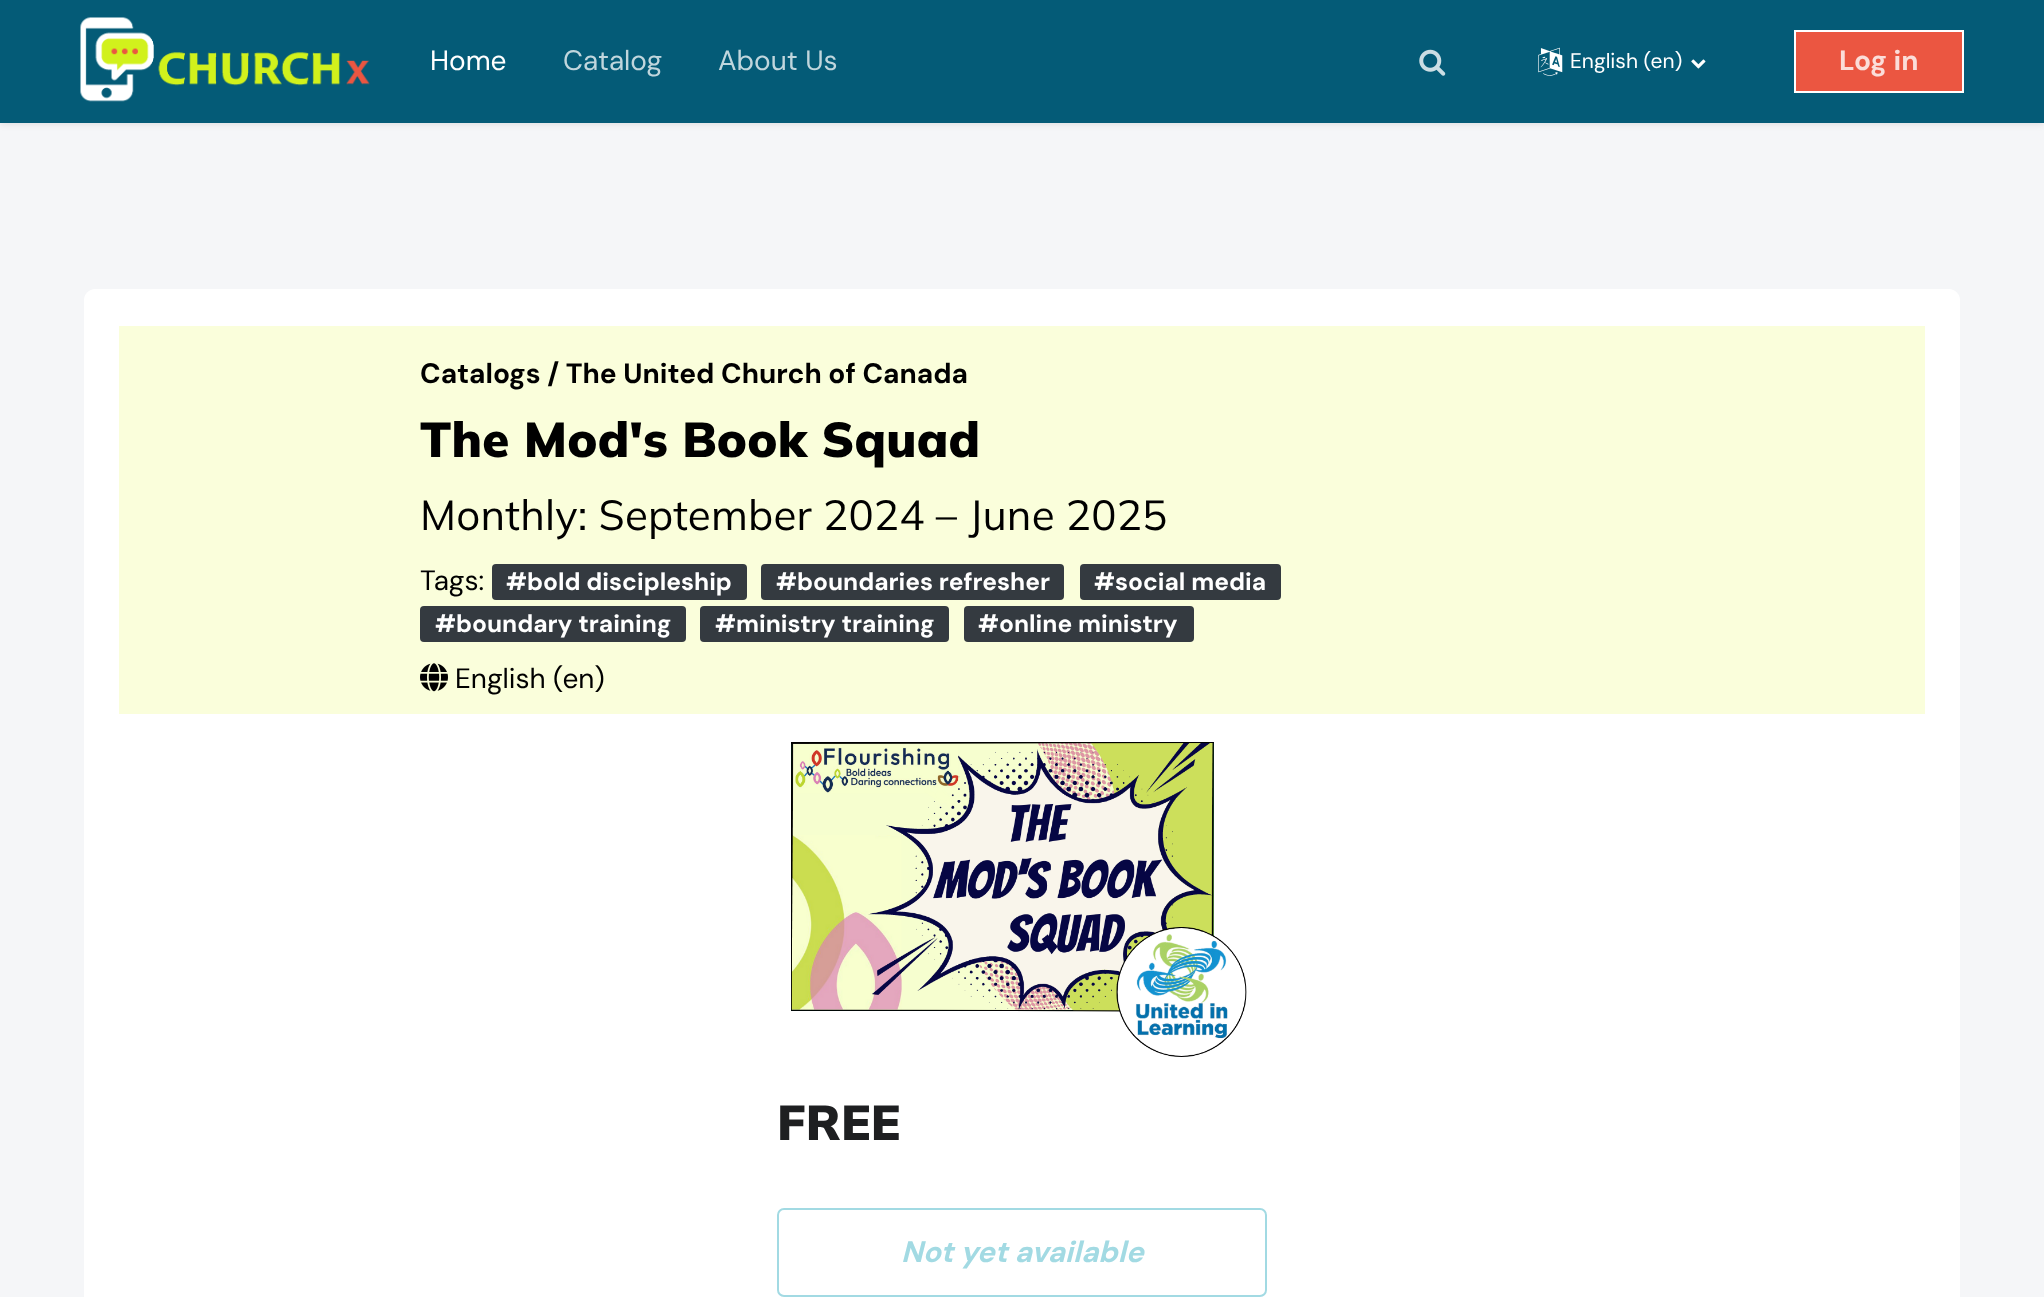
<!DOCTYPE html>
<meta charset="utf-8">
<style>body { margin: 0 } canvas { display: block }</style>
<canvas id="canvas" width="2044" height="1297"></canvas>
<img id="img1" src="img_01.png" hidden>
<img id="img2" src="img_02.png" hidden>
<img id="img3" src="img_03.png" hidden>
<img id="img4" src="img_04.png" hidden>
<img id="img5" src="img_05.png" hidden>
<img id="img6" src="img_06.png" hidden>
<script>
window.onload = function () {
	const canvas = document.getElementById("canvas");
	const ctx = canvas.getContext("2d");
	ctx.miterLimit = 4;
	ctx.fontKerning = "normal";
	function txt(s, x, y) {
		ctx.fillText(s, x, y);
	}
	function fill(x, y, w, h) {
		ctx.fillRect(x, y, w, h);
	}
	function round(x, y, w, h, r) {
		ctx.beginPath();
		ctx.roundRect(x, y, w, h, r);
		ctx.fill();
	}
	function img(id, x, y, w, h) {
		ctx.drawImage(document.getElementById(id), x, y, w, h);
	}

	ctx.fillStyle = "#F5F6F8";
	fill(0, 0, 2044, 1297);
	ctx.fillStyle = "rgba(0, 0, 0, 0.1)";
	ctx.filter = "blur(3.5px)";
	ctx.beginPath();
	ctx.rect(0, 2, 2044, 122);
	ctx.fill();
	ctx.filter = "none";
	ctx.fillStyle = "#045B77";
	fill(0, 0, 2044, 123);
	img("img1", 80, 17, 290, 85);
	img("img2", 1419, 49, 27, 27);
	img("img3", 1538, 47, 25, 29);
	img("img4", 1691, 59, 15, 10);
	ctx.fillStyle = "#EB5641";
	ctx.beginPath();
	ctx.rect(1795, 31, 168, 61);
	ctx.fill();
	ctx.strokeStyle = "#FFFFFF";
	ctx.lineWidth = 2;
	ctx.stroke();
	ctx.fillStyle = "#FFFFFF";
	ctx.beginPath();
	ctx.moveTo(95, 289);
	ctx.lineTo(1949, 289);
	ctx.bezierCurveTo(1955, 289, 1960, 294, 1960, 300);
	ctx.lineTo(1960, 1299);
	ctx.lineTo(84, 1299);
	ctx.lineTo(84, 300);
	ctx.bezierCurveTo(84, 294, 89, 289, 95, 289);
	ctx.closePath();
	ctx.fill();
	ctx.fillStyle = "#FAFEDB";
	fill(119, 326, 1806, 388);
	ctx.fillStyle = "#343A40";
	round(492, 564, 255, 36, 4);
	round(761, 564, 303, 36, 4);
	round(1080, 564, 201, 36, 4);
	round(420, 606, 266, 36, 4);
	round(700, 606, 249, 36, 4);
	round(964, 606, 230, 36, 4);
	img("img5", 420, 663, 28, 29);
	img("img6", 791, 742, 456, 315);
	ctx.beginPath();
	ctx.roundRect(778, 1209, 488, 87, 6);
	ctx.strokeStyle = "#A2DAE3";
	ctx.stroke();
	ctx.font = "28px DM Sans";
	ctx.fillStyle = "#FFFFFF";
	txt("Home", 430, 70);
	ctx.fillStyle = "#C0D6DD";
	txt("Catalog", 563, 70);
	txt("About Us", 718, 70);
	ctx.font = "21px DM Sans";
	ctx.fillStyle = "#FFFFFF";
	txt("English (en)", 1570, 68);
	ctx.font = "bold 28px DM Sans";
	ctx.fillStyle = "#FBDDD9";
	txt("Log in", 1839, 70);
	ctx.fillStyle = "#000000";
	txt("Catalogs / The United Church of Canada", 420, 383);
	ctx.letterSpacing = "0.2px";
	ctx.font = "900 49px Mulish";
	txt("The Mod's Book Squad", 420, 457);
	ctx.font = "42px Mulish";
	txt("Monthly: September 2024 – June 2025", 420, 530);
	ctx.letterSpacing = "0px";
	ctx.font = "28px DM Sans";
	txt("Tags:", 420, 590);
	ctx.font = "bold 24.5px DM Sans";
	ctx.fillStyle = "#FFFFFF";
	txt("#bold discipleship", 506, 590);
	txt("#boundaries refresher", 776, 590);
	txt("#social media", 1094, 590);
	txt("#boundary training", 435, 632);
	txt("#ministry training", 715, 632);
	txt("#online ministry", 978, 632);
	ctx.font = "28px DM Sans";
	ctx.fillStyle = "#000000";
	txt("English (en)", 455, 688);
	ctx.letterSpacing = "0.2px";
	ctx.font = "900 49px Mulish";
	ctx.fillStyle = "#1E1F21";
	txt("FREE", 777, 1140);
	ctx.letterSpacing = "0px";
	ctx.font = "italic bold 29.75px DM Sans";
	ctx.fillStyle = "#A2DAE3";
	txt("Not yet available", 901, 1262);
};
</script>
